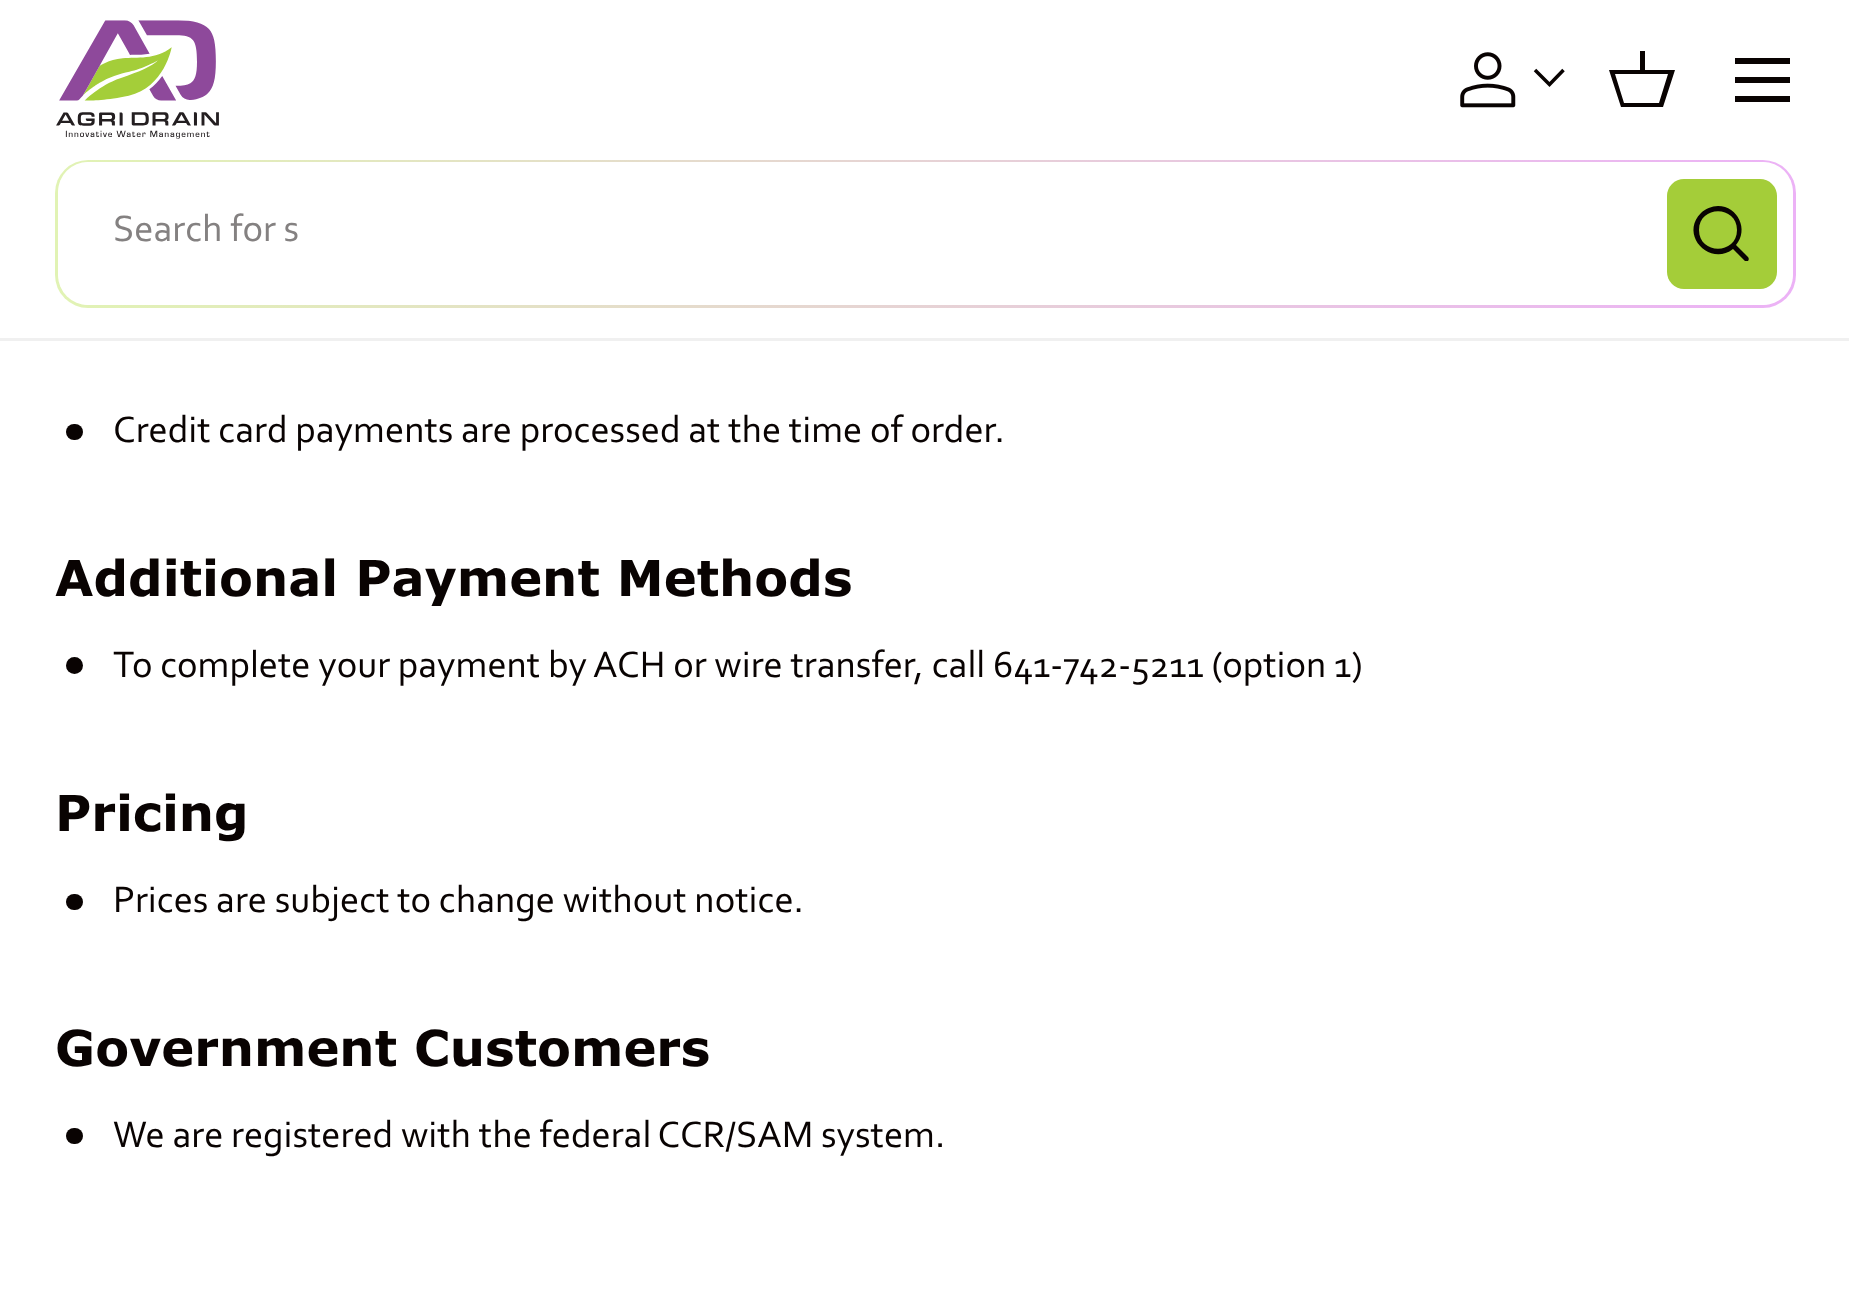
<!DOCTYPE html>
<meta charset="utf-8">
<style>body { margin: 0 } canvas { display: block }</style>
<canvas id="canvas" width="1849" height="1296"></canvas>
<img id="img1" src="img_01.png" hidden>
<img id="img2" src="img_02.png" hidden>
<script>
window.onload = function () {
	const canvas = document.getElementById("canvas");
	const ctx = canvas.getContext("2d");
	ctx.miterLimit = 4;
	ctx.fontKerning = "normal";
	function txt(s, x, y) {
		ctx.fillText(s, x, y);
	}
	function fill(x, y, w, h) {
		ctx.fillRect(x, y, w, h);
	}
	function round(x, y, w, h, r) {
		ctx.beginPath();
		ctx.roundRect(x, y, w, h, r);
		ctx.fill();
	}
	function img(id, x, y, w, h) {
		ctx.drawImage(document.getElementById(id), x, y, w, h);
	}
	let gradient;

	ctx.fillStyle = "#FFFFFF";
	fill(0, 0, 1849, 1296);
	ctx.fillStyle = "#F0F0F0";
	fill(0, 338, 1849, 3);
	img("img1", 56, 20, 163, 119);
	img("img2", 1460, 52, 56, 56);
	ctx.beginPath();
	ctx.moveTo(1563.5, 70);
	ctx.lineTo(1549.5, 84.5);
	ctx.lineTo(1535, 70);
	ctx.strokeStyle = "#090302";
	ctx.lineWidth = 3.5;
	ctx.stroke();
	ctx.fillStyle = "#090302";
	ctx.beginPath();
	ctx.moveTo(1640, 70);
	ctx.lineTo(1640, 51);
	ctx.lineTo(1645, 51);
	ctx.lineTo(1645, 70);
	ctx.lineTo(1675, 70);
	ctx.lineTo(1663, 107);
	ctx.lineTo(1621, 107);
	ctx.lineTo(1609, 70);
	ctx.closePath();
	ctx.moveTo(1615, 74);
	ctx.lineTo(1624, 103);
	ctx.lineTo(1659, 103);
	ctx.lineTo(1668, 74);
	ctx.closePath();
	ctx.fill();
	fill(1735, 58, 55, 6);
	fill(1735, 96, 55, 6);
	fill(1735, 77, 55, 6);
	gradient = ctx.createLinearGradient(55, 234, 1796, 234);
	gradient.addColorStop(0, "#E1F3B4");
	gradient.addColorStop(1, "#ECB2F6");
	ctx.fillStyle = gradient;
	round(55, 160, 1741, 148, 33);
	ctx.fillStyle = "#FFFFFF";
	round(58, 162, 1735, 143, 30);
	round(58, 162, 1735, 143, 33);
	ctx.fillStyle = "#A4CD39";
	round(1667, 179, 110, 110, 17);
	ctx.fillStyle = "#090302";
	ctx.beginPath();
	ctx.moveTo(1718, 206);
	ctx.bezierCurveTo(1712, 206, 1705, 209, 1701, 213);
	ctx.bezierCurveTo(1679, 235, 1710, 267, 1733, 249);
	ctx.lineTo(1745, 261);
	ctx.bezierCurveTo(1746, 261, 1747, 261, 1748, 261);
	ctx.bezierCurveTo(1749, 260, 1749, 258, 1748, 257);
	ctx.lineTo(1736, 245);
	ctx.bezierCurveTo(1749, 230, 1738, 206, 1718, 206);
	ctx.closePath();
	ctx.moveTo(1699, 230);
	ctx.bezierCurveTo(1699, 205, 1737, 205, 1737, 230);
	ctx.bezierCurveTo(1737, 255, 1699, 255, 1699, 230);
	ctx.closePath();
	ctx.fill("evenodd");
	round(66, 424, 17, 16, 8);
	ctx.beginPath();
	ctx.arc(74.5, 665.5, 8.5, 0, Math.PI * 2);
	ctx.fill();
	round(66, 894, 17, 16, 8);
	round(66, 1128, 17, 16, 8);
	ctx.font = "38.5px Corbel";
	ctx.fillStyle = "#848181";
	txt("Search for s", 113, 241);
	ctx.fillStyle = "#090302";
	txt("Credit card payments are processed at the time of order.", 113, 442);
	ctx.font = "bold 49.5px Verdana";
	txt("Additional Payment Methods", 55, 596);
	ctx.font = "38.5px Corbel";
	txt("To complete your payment by ACH or wire transfer, call 641-742-5211 (option 1)", 113, 677);
	ctx.font = "bold 49.5px Verdana";
	txt("Pricing", 55, 831);
	ctx.font = "38.5px Corbel";
	txt("Prices are subject to change without notice.", 113, 912);
	ctx.font = "bold 49.5px Verdana";
	txt("Government Customers", 55, 1066);
	ctx.font = "38.5px Corbel";
	txt("We are registered with the federal CCR/SAM system.", 113, 1147);
};
</script>
